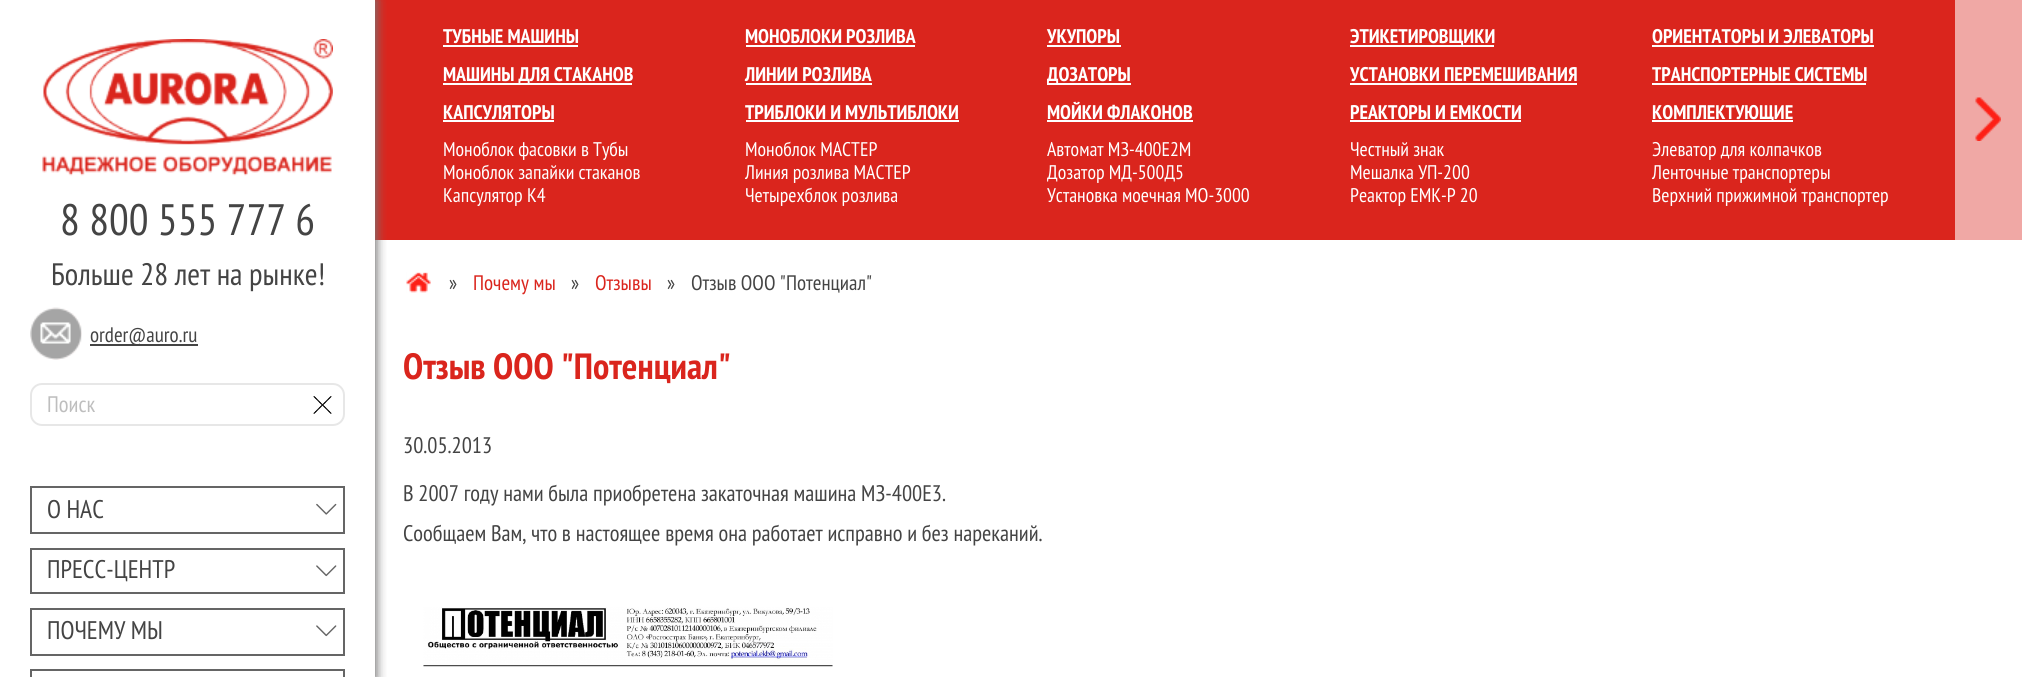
#include <cairo/cairo.h>
#include <math.h>
#include <stddef.h>

typedef struct { double x, y; const char *s; } line_t;
typedef struct { double x, y, w, h; unsigned color; } box_t;
static cairo_t *cr;

static void rgb(unsigned color)
{
	cairo_set_source_rgb(cr, (color >> 16) / 255.0, (color >> 8 & 255) / 255.0, (color & 255) / 255.0);
}

static void rrect(double x, double y, double w, double h, double r)
{
	cairo_new_sub_path(cr);
	cairo_arc(cr, x + w - r, y + h - r, r, 0, M_PI / 2);
	cairo_arc(cr, x + r, y + h - r, r, M_PI / 2, M_PI);
	cairo_arc(cr, x + r, y + r, r, M_PI, 1.5 * M_PI);
	cairo_arc(cr, x + w - r, y + r, r, 1.5 * M_PI, 2 * M_PI);
	cairo_close_path(cr);
}

static void soft_shadow(double x, double y, double w, double h, double r, double blur, double alpha)
{
	cairo_push_group_with_content(cr, CAIRO_CONTENT_ALPHA);
	cairo_set_operator(cr, CAIRO_OPERATOR_SOURCE);
	for (int i = 15; i >= -15 && fmin(w, h) + blur * i / 3 > 0; i -= 2) {
		double e = blur * i / 6;
		cairo_set_source_rgba(cr, 0, 0, 0, alpha * erfc((i - 1) / 8.5) / 2);
		rrect(x - e, y - e, w + 2 * e, h + 2 * e, fmax(0, fmin(r + e + blur * .6, fmin(w, h) / 2 + e)));
		cairo_fill(cr);
	}
	cairo_pattern_t *soft = cairo_pop_group(cr);
	cairo_mask(cr, soft);
	cairo_pattern_destroy(soft);
}

static void image(const char *path, double x, double y, double w, double h)
{
	cairo_surface_t *image = cairo_image_surface_create_from_png(path);
	cairo_save(cr);
	cairo_set_source_surface(cr, image, x, y);
	cairo_rectangle(cr, x, y, w, h);
	cairo_fill(cr);
	cairo_restore(cr);
	cairo_surface_destroy(image);
}

int main(void) {
	cairo_surface_t *surface = cairo_image_surface_create(CAIRO_FORMAT_RGB24, 2022, 677);
	cr = cairo_create(surface);
	cairo_font_options_t *options = cairo_font_options_create();
	cairo_font_options_set_hint_metrics(options, CAIRO_HINT_METRICS_OFF);
	cairo_font_options_set_hint_style(options, CAIRO_HINT_STYLE_NONE);
	cairo_set_font_options(cr, options);
	cairo_set_miter_limit(cr, 4);
	rgb(0xffffff);
	cairo_paint(cr);
	rgb(0xda251d);
	cairo_rectangle(cr, 375, 0, 1580, 240);
	cairo_fill(cr);
	cairo_save(cr);
	cairo_rectangle(cr, 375, 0, 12, 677);
	cairo_clip(cr);
	rgb(0x757474);
	soft_shadow(2, 0, 375, 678, 0, 5, 1);
	cairo_restore(cr);
	image("img/1.png", 42, 39, 291, 137);
	image("img/2.png", 30, 307, 52, 53);
	rgb(0x444444);
	cairo_rectangle(cr, 90, 344, 108, 2);
	cairo_fill(cr);
	rrect(31, 384, 313, 41, 11);
	rgb(0xe7e7e7);
	cairo_stroke(cr);
	image("img/3.png", 313, 396, 19, 18);
	cairo_rectangle(cr, 31, 487, 313, 46);
	rgb(0x656565);
	cairo_stroke(cr);
	image("img/4.png", 316, 503, 21, 12);
	cairo_rectangle(cr, 31, 549, 313, 44);
	cairo_stroke(cr);
	image("img/5.png", 316, 565, 21, 12);
	cairo_rectangle(cr, 31, 609, 313, 46);
	cairo_stroke(cr);
	image("img/5.png", 316, 625, 21, 12);
	cairo_rectangle(cr, 31, 670, 313, 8);
	cairo_stroke(cr);
	{
		static const box_t items[] = {
			{443, 45, 135, 2, 0xffffff},
			{443, 83, 189, 2, 0xffffff},
			{443, 120, 111, 2, 0xffffff},
			{746, 45, 169, 2, 0xffffff},
			{746, 83, 126, 2, 0xffffff},
			{746, 120, 213, 2, 0xffffff},
			{1047, 45, 74, 2, 0xffffff},
			{1047, 83, 84, 2, 0xffffff},
			{1047, 120, 146, 2, 0xffffff},
			{1350, 45, 144, 2, 0xffffff},
			{1350, 83, 227, 2, 0xffffff},
			{1350, 120, 171, 2, 0xffffff},
			{1652, 45, 222, 2, 0xffffff},
			{1652, 83, 214, 2, 0xffffff},
			{1652, 120, 141, 2, 0xffffff},
			{1955, 0, 67, 240, 0xf0a8a5},
		};
		for (size_t i = 0; i < sizeof items / sizeof *items; i++) {
			rgb(items[i].color);
			cairo_rectangle(cr, items[i].x, items[i].y, items[i].w, items[i].h);
			cairo_fill(cr);
		}
	}
	image("img/6.png", 1975, 97, 26, 44);
	image("img/7.png", 406, 272, 25, 21);
	image("img/8.png", 423, 607, 410, 60);
	cairo_select_font_face(cr, "PT Sans Narrow", CAIRO_FONT_SLANT_NORMAL, CAIRO_FONT_WEIGHT_NORMAL);
	cairo_set_font_size(cr, 44);
	rgb(0x444444);
	cairo_move_to(cr, 60, 235);
	cairo_show_text(cr, "8 800 555 777 6");
	cairo_set_font_size(cr, 31);
	cairo_move_to(cr, 51, 285);
	cairo_show_text(cr, "Больше 28 лет на рынке!");
	cairo_set_font_size(cr, 21);
	cairo_move_to(cr, 90, 342);
	cairo_show_text(cr, "order@auro.ru");
	cairo_set_font_size(cr, 22.5);
	rgb(0xbebebe);
	cairo_move_to(cr, 47, 412);
	cairo_show_text(cr, "Поиск");
	cairo_set_font_size(cr, 25.5);
	rgb(0x444444);
	{
		static const line_t items[] = {
			{47, 518, "О НАС"},
			{47, 578, "ПРЕCC-ЦЕНТР"},
			{47, 639, "ПОЧЕМУ МЫ"},
		};
		for (size_t i = 0; i < sizeof items / sizeof *items; i++) {
			cairo_move_to(cr, items[i].x, items[i].y);
			cairo_show_text(cr, items[i].s);
		}
	}
	cairo_save(cr);
	cairo_rectangle(cr, 443, 0, 1512, 240);
	cairo_clip(cr);
	cairo_select_font_face(cr, "PT Sans Narrow", CAIRO_FONT_SLANT_NORMAL, CAIRO_FONT_WEIGHT_BOLD);
	cairo_set_font_size(cr, 19.75);
	rgb(0xffffff);
	cairo_move_to(cr, 443, 43);
	cairo_show_text(cr, "ТУБНЫЕ МАШИНЫ");
	cairo_restore(cr);
	cairo_select_font_face(cr, "PT Sans Narrow", CAIRO_FONT_SLANT_NORMAL, CAIRO_FONT_WEIGHT_BOLD);
	cairo_set_font_size(cr, 19.75);
	rgb(0xffffff);
	cairo_move_to(cr, 443, 81);
	cairo_show_text(cr, "МАШИНЫ ДЛЯ СТАКАНОВ");
	cairo_move_to(cr, 443, 119);
	cairo_show_text(cr, "КАПСУЛЯТОРЫ");
	cairo_select_font_face(cr, "PT Sans Narrow", CAIRO_FONT_SLANT_NORMAL, CAIRO_FONT_WEIGHT_NORMAL);
	{
		static const line_t items[] = {
			{443, 156, "Моноблок фасовки в Тубы"},
			{443, 179, "Моноблок запайки стаканов"},
			{443, 202, "Капсулятор К4"},
		};
		for (size_t i = 0; i < sizeof items / sizeof *items; i++) {
			cairo_move_to(cr, items[i].x, items[i].y);
			cairo_show_text(cr, items[i].s);
		}
	}
	cairo_select_font_face(cr, "PT Sans Narrow", CAIRO_FONT_SLANT_NORMAL, CAIRO_FONT_WEIGHT_BOLD);
	{
		static const line_t items[] = {
			{745, 43, "МОНОБЛОКИ РОЗЛИВА"},
			{745, 81, "ЛИНИИ РОЗЛИВА"},
			{745, 119, "ТРИБЛОКИ И МУЛЬТИБЛОКИ"},
		};
		for (size_t i = 0; i < sizeof items / sizeof *items; i++) {
			cairo_move_to(cr, items[i].x, items[i].y);
			cairo_show_text(cr, items[i].s);
		}
	}
	cairo_select_font_face(cr, "PT Sans Narrow", CAIRO_FONT_SLANT_NORMAL, CAIRO_FONT_WEIGHT_NORMAL);
	{
		static const line_t items[] = {
			{745, 156, "Моноблок МАСТЕР"},
			{745, 179, "Линия розлива МАСТЕР"},
			{745, 202, "Четырехблок розлива"},
		};
		for (size_t i = 0; i < sizeof items / sizeof *items; i++) {
			cairo_move_to(cr, items[i].x, items[i].y);
			cairo_show_text(cr, items[i].s);
		}
	}
	cairo_select_font_face(cr, "PT Sans Narrow", CAIRO_FONT_SLANT_NORMAL, CAIRO_FONT_WEIGHT_BOLD);
	{
		static const line_t items[] = {
			{1047, 43, "УКУПОРЫ"},
			{1047, 81, "ДОЗАТОРЫ"},
			{1047, 119, "МОЙКИ ФЛАКОНОВ"},
		};
		for (size_t i = 0; i < sizeof items / sizeof *items; i++) {
			cairo_move_to(cr, items[i].x, items[i].y);
			cairo_show_text(cr, items[i].s);
		}
	}
	cairo_select_font_face(cr, "PT Sans Narrow", CAIRO_FONT_SLANT_NORMAL, CAIRO_FONT_WEIGHT_NORMAL);
	{
		static const line_t items[] = {
			{1047, 156, "Автомат МЗ-400Е2М"},
			{1047, 179, "Дозатор МД-500Д5"},
			{1047, 202, "Установка моечная МО-3000"},
		};
		for (size_t i = 0; i < sizeof items / sizeof *items; i++) {
			cairo_move_to(cr, items[i].x, items[i].y);
			cairo_show_text(cr, items[i].s);
		}
	}
	cairo_select_font_face(cr, "PT Sans Narrow", CAIRO_FONT_SLANT_NORMAL, CAIRO_FONT_WEIGHT_BOLD);
	{
		static const line_t items[] = {
			{1350, 43, "ЭТИКЕТИРОВЩИКИ"},
			{1350, 81, "УСТАНОВКИ ПЕРЕМЕШИВАНИЯ"},
			{1350, 119, "РЕАКТОРЫ И ЕМКОСТИ"},
		};
		for (size_t i = 0; i < sizeof items / sizeof *items; i++) {
			cairo_move_to(cr, items[i].x, items[i].y);
			cairo_show_text(cr, items[i].s);
		}
	}
	cairo_select_font_face(cr, "PT Sans Narrow", CAIRO_FONT_SLANT_NORMAL, CAIRO_FONT_WEIGHT_NORMAL);
	{
		static const line_t items[] = {
			{1350, 156, "Честный знак"},
			{1350, 179, "Мешалка УП-200"},
			{1350, 202, "Реактор ЕМК-Р 20"},
		};
		for (size_t i = 0; i < sizeof items / sizeof *items; i++) {
			cairo_move_to(cr, items[i].x, items[i].y);
			cairo_show_text(cr, items[i].s);
		}
	}
	cairo_select_font_face(cr, "PT Sans Narrow", CAIRO_FONT_SLANT_NORMAL, CAIRO_FONT_WEIGHT_BOLD);
	{
		static const line_t items[] = {
			{1652, 43, "ОРИЕНТАТОРЫ И ЭЛЕВАТОРЫ"},
			{1652, 81, "ТРАНСПОРТЕРНЫЕ СИСТЕМЫ"},
			{1652, 119, "КОМПЛЕКТУЮЩИЕ"},
		};
		for (size_t i = 0; i < sizeof items / sizeof *items; i++) {
			cairo_move_to(cr, items[i].x, items[i].y);
			cairo_show_text(cr, items[i].s);
		}
	}
	cairo_select_font_face(cr, "PT Sans Narrow", CAIRO_FONT_SLANT_NORMAL, CAIRO_FONT_WEIGHT_NORMAL);
	{
		static const line_t items[] = {
			{1652, 156, "Элеватор для колпачков"},
			{1652, 179, "Ленточные транспортеры"},
			{1652, 202, "Верхний прижимной транспортер"},
		};
		for (size_t i = 0; i < sizeof items / sizeof *items; i++) {
			cairo_move_to(cr, items[i].x, items[i].y);
			cairo_show_text(cr, items[i].s);
		}
	}
	cairo_set_font_size(cr, 21);
	rgb(0x444444);
	cairo_move_to(cr, 449, 290);
	cairo_show_text(cr, "»");
	rgb(0xda251d);
	cairo_move_to(cr, 473, 290);
	cairo_show_text(cr, "Почему мы");
	rgb(0x444444);
	cairo_move_to(cr, 571, 290);
	cairo_show_text(cr, "»");
	rgb(0xda251d);
	cairo_move_to(cr, 595, 290);
	cairo_show_text(cr, "Отзывы");
	rgb(0x444444);
	cairo_move_to(cr, 667, 290);
	cairo_show_text(cr, "»");
	cairo_move_to(cr, 691, 290);
	cairo_show_text(cr, "Отзыв ООО \"Потенциал\"");
	cairo_select_font_face(cr, "PT Sans Narrow", CAIRO_FONT_SLANT_NORMAL, CAIRO_FONT_WEIGHT_BOLD);
	cairo_set_font_size(cr, 36.5);
	rgb(0xda251d);
	cairo_move_to(cr, 403, 379);
	cairo_show_text(cr, "Отзыв ООО \"Потенциал\"");
	cairo_select_font_face(cr, "PT Sans Narrow", CAIRO_FONT_SLANT_NORMAL, CAIRO_FONT_WEIGHT_NORMAL);
	cairo_set_font_size(cr, 22.5);
	rgb(0x444444);
	{
		static const line_t items[] = {
			{403, 453, "30.05.2013"},
			{403, 501, "В 2007 году нами была приобретена закаточная машина МЗ-400Е3."},
			{403, 541, "Сообщаем Вам, что в настоящее время она работает исправно и без нареканий."},
		};
		for (size_t i = 0; i < sizeof items / sizeof *items; i++) {
			cairo_move_to(cr, items[i].x, items[i].y);
			cairo_show_text(cr, items[i].s);
		}
	}
	cairo_surface_write_to_png(surface, "page.png");
	cairo_font_options_destroy(options);
	cairo_destroy(cr);
	cairo_surface_destroy(surface);
	return 0;
}
